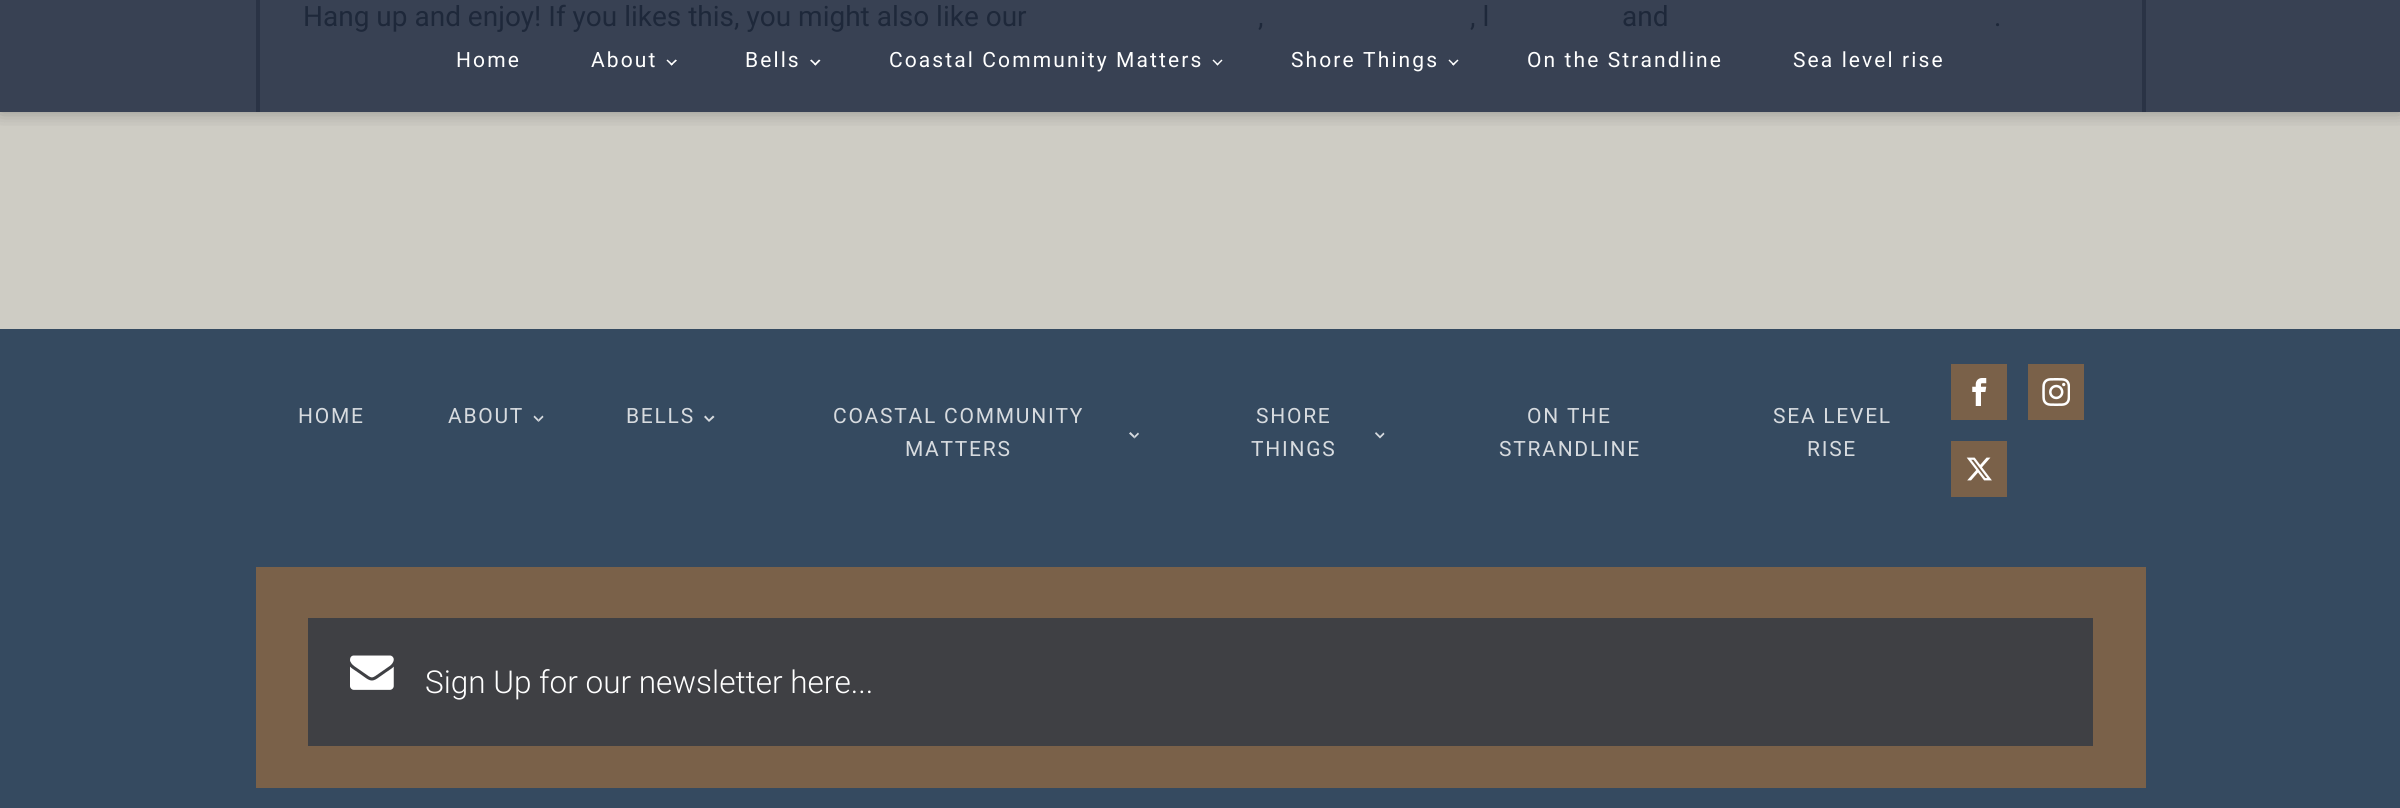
#include <cairo/cairo.h>
#include <math.h>
#include <stddef.h>

typedef struct { double x, y; const char *s; } line_t;
typedef struct { double x, y, w, h; unsigned color; } box_t;
static cairo_t *cr;

static void rgb(unsigned color)
{
	cairo_set_source_rgb(cr, (color >> 16) / 255.0, (color >> 8 & 255) / 255.0, (color & 255) / 255.0);
}

static void tracked(double x, double y, const char *s, double letter, double word)
{
	cairo_move_to(cr, x, y);
	while (*s) {
		char ch[5] = {0};
		int n = 0;
		do ch[n++] = *s++; while ((*s & 0xC0) == 0x80);
		cairo_show_text(cr, ch);
		cairo_rel_move_to(cr, letter + word * (*ch == ' '), 0);
	}
}

static void rrect(double x, double y, double w, double h, double r)
{
	cairo_new_sub_path(cr);
	cairo_arc(cr, x + w - r, y + h - r, r, 0, M_PI / 2);
	cairo_arc(cr, x + r, y + h - r, r, M_PI / 2, M_PI);
	cairo_arc(cr, x + r, y + r, r, M_PI, 1.5 * M_PI);
	cairo_arc(cr, x + w - r, y + r, r, 1.5 * M_PI, 2 * M_PI);
	cairo_close_path(cr);
}

static void soft_shadow(double x, double y, double w, double h, double r, double blur, double alpha)
{
	cairo_push_group_with_content(cr, CAIRO_CONTENT_ALPHA);
	cairo_set_operator(cr, CAIRO_OPERATOR_SOURCE);
	for (int i = 15; i >= -15 && fmin(w, h) + blur * i / 3 > 0; i -= 2) {
		double e = blur * i / 6;
		cairo_set_source_rgba(cr, 0, 0, 0, alpha * erfc((i - 1) / 8.5) / 2);
		rrect(x - e, y - e, w + 2 * e, h + 2 * e, fmax(0, fmin(r + e + blur * .6, fmin(w, h) / 2 + e)));
		cairo_fill(cr);
	}
	cairo_pattern_t *soft = cairo_pop_group(cr);
	cairo_mask(cr, soft);
	cairo_pattern_destroy(soft);
}

static void image(const char *path, double x, double y, double w, double h)
{
	cairo_surface_t *image = cairo_image_surface_create_from_png(path);
	cairo_save(cr);
	cairo_set_source_surface(cr, image, x, y);
	cairo_rectangle(cr, x, y, w, h);
	cairo_fill(cr);
	cairo_restore(cr);
	cairo_surface_destroy(image);
}

int main(void) {
	cairo_surface_t *surface = cairo_image_surface_create(CAIRO_FORMAT_RGB24, 2400, 808);
	cr = cairo_create(surface);
	cairo_font_options_t *options = cairo_font_options_create();
	cairo_font_options_set_hint_metrics(options, CAIRO_HINT_METRICS_OFF);
	cairo_font_options_set_hint_style(options, CAIRO_HINT_STYLE_NONE);
	cairo_set_font_options(cr, options);
	cairo_set_miter_limit(cr, 4);
	rgb(0xceccc4);
	cairo_paint(cr);
	{
		static const box_t items[] = {
			{0, 0, 2400, 112, 0x384153},
			{2142, 0, 4, 112, 0x2a3345},
			{256, 0, 4, 112, 0x2a3345},
		};
		for (size_t i = 0; i < sizeof items / sizeof *items; i++) {
			rgb(items[i].color);
			cairo_rectangle(cr, items[i].x, items[i].y, items[i].w, items[i].h);
			cairo_fill(cr);
		}
	}
	cairo_save(cr);
	cairo_rectangle(cr, 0, 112, 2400, 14);
	cairo_clip(cr);
	rgb(0x000000);
	soft_shadow(0, 0, 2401, 112, 0, 9, 0.3);
	cairo_restore(cr);
	rgb(0xffffff);
	cairo_new_path(cr);
	cairo_move_to(cr, 677, 60.5);
	cairo_line_to(cr, 671.5, 65.5);
	cairo_line_to(cr, 670.5, 64.5);
	cairo_line_to(cr, 675.5, 59.5);
	cairo_close_path(cr);
	cairo_fill(cr);
	cairo_new_path(cr);
	cairo_move_to(cr, 673, 64.5);
	cairo_line_to(cr, 671.5, 65.5);
	cairo_line_to(cr, 666.5, 60.5);
	cairo_line_to(cr, 667.5, 59.5);
	cairo_close_path(cr);
	cairo_fill(cr);
	cairo_new_path(cr);
	cairo_move_to(cr, 820.5, 60.5);
	cairo_line_to(cr, 815.5, 65.5);
	cairo_line_to(cr, 814, 64.5);
	cairo_line_to(cr, 819, 59.5);
	cairo_close_path(cr);
	cairo_fill(cr);
	cairo_new_path(cr);
	cairo_move_to(cr, 816.5, 64.5);
	cairo_line_to(cr, 815.5, 65.5);
	cairo_line_to(cr, 810, 60.5);
	cairo_line_to(cr, 811.5, 59.5);
	cairo_close_path(cr);
	cairo_fill(cr);
	cairo_new_path(cr);
	cairo_move_to(cr, 1222.5, 60.5);
	cairo_line_to(cr, 1217.5, 65.5);
	cairo_line_to(cr, 1216.5, 64.5);
	cairo_line_to(cr, 1221.5, 59.5);
	cairo_close_path(cr);
	cairo_fill(cr);
	cairo_new_path(cr);
	cairo_move_to(cr, 1218.5, 64.5);
	cairo_line_to(cr, 1217.5, 65.5);
	cairo_line_to(cr, 1212.5, 60.5);
	cairo_line_to(cr, 1213.5, 59.5);
	cairo_close_path(cr);
	cairo_fill(cr);
	cairo_new_path(cr);
	cairo_move_to(cr, 1458.5, 60.5);
	cairo_line_to(cr, 1453.5, 65.5);
	cairo_line_to(cr, 1452, 64.5);
	cairo_line_to(cr, 1457.5, 59.5);
	cairo_close_path(cr);
	cairo_fill(cr);
	cairo_new_path(cr);
	cairo_move_to(cr, 1454.5, 64.5);
	cairo_line_to(cr, 1453.5, 65.5);
	cairo_line_to(cr, 1448.5, 60.5);
	cairo_line_to(cr, 1449.5, 59.5);
	cairo_close_path(cr);
	cairo_fill(cr);
	rgb(0x354a60);
	cairo_rectangle(cr, 0, 329, 2400, 479);
	cairo_fill(cr);
	rgb(0xd7dbdf);
	cairo_new_path(cr);
	cairo_move_to(cr, 543.5, 417);
	cairo_line_to(cr, 538.5, 422);
	cairo_line_to(cr, 538.5, 419.5);
	cairo_line_to(cr, 542.5, 415.5);
	cairo_close_path(cr);
	cairo_fill(cr);
	cairo_set_source_rgba(cr, 1, 1, 1, 0.8);
	cairo_new_path(cr);
	cairo_move_to(cr, 538.5, 422);
	cairo_line_to(cr, 533.5, 417);
	cairo_line_to(cr, 534.5, 415.5);
	cairo_line_to(cr, 538.5, 419.5);
	cairo_close_path(cr);
	cairo_fill(cr);
	rgb(0xd7dbdf);
	cairo_new_path(cr);
	cairo_move_to(cr, 714.5, 417);
	cairo_line_to(cr, 709, 422);
	cairo_line_to(cr, 709, 419.5);
	cairo_line_to(cr, 713, 415.5);
	cairo_close_path(cr);
	cairo_move_to(cr, 709, 422);
	cairo_line_to(cr, 704, 417);
	cairo_line_to(cr, 705.5, 415.5);
	cairo_line_to(cr, 709, 419.5);
	cairo_close_path(cr);
	cairo_fill(cr);
	cairo_new_path(cr);
	cairo_move_to(cr, 1139, 434);
	cairo_line_to(cr, 1134.5, 438.5);
	cairo_line_to(cr, 1134.5, 436);
	cairo_line_to(cr, 1138, 432.5);
	cairo_close_path(cr);
	cairo_fill(cr);
	cairo_set_source_rgba(cr, 1, 1, 1, 0.8);
	cairo_new_path(cr);
	cairo_move_to(cr, 1134.5, 438.5);
	cairo_line_to(cr, 1129, 433.5);
	cairo_line_to(cr, 1130.5, 432);
	cairo_line_to(cr, 1134.5, 436);
	cairo_close_path(cr);
	cairo_fill(cr);
	rgb(0xd7dbdf);
	cairo_new_path(cr);
	cairo_move_to(cr, 1384.5, 434);
	cairo_line_to(cr, 1380, 438.5);
	cairo_line_to(cr, 1380, 436);
	cairo_line_to(cr, 1383.5, 432.5);
	cairo_close_path(cr);
	cairo_move_to(cr, 1380, 438.5);
	cairo_line_to(cr, 1375, 433.5);
	cairo_line_to(cr, 1376, 432);
	cairo_line_to(cr, 1380, 436);
	cairo_close_path(cr);
	cairo_fill(cr);
	rgb(0x7a6149);
	cairo_rectangle(cr, 1951, 364, 56, 56);
	cairo_fill(cr);
	image("img/1.png", 1972, 378, 15, 28);
	cairo_rectangle(cr, 2028, 364, 56, 56);
	cairo_fill(cr);
	image("img/2.png", 2042, 378, 28, 28);
	cairo_rectangle(cr, 1951, 441, 56, 56);
	cairo_fill(cr);
	image("img/3.png", 1966, 457, 26, 24);
	cairo_rectangle(cr, 256, 567, 1890, 221);
	cairo_fill(cr);
	rgb(0x3f4044);
	cairo_rectangle(cr, 308, 618, 1785, 128);
	cairo_fill(cr);
	image("img/4.png", 350, 655, 44, 35);
	cairo_select_font_face(cr, "Roboto", CAIRO_FONT_SLANT_NORMAL, CAIRO_FONT_WEIGHT_NORMAL);
	cairo_set_font_size(cr, 28);
	rgb(0x1e283a);
	{
		static const line_t items[] = {
			{303, 26, "Hang up and enjoy! If you likes this, you might also like our"},
			{1258, 26, ","},
			{1470, 26, ", l"},
			{1622, 26, "and"},
			{1994, 26, "."},
		};
		for (size_t i = 0; i < sizeof items / sizeof *items; i++) {
			cairo_move_to(cr, items[i].x, items[i].y);
			cairo_show_text(cr, items[i].s);
		}
	}
	cairo_set_font_size(cr, 21);
	rgb(0xffffff);
	{
		static const line_t items[] = {
			{456, 67, "Home"},
			{591, 67, "About"},
			{745, 67, "Bells"},
			{889, 67, "Coastal Community Matters"},
			{1291, 67, "Shore Things"},
			{1527, 67, "On the Strandline"},
			{1793, 67, "Sea level rise"},
		};
		for (size_t i = 0; i < sizeof items / sizeof *items; i++) {
			tracked(items[i].x, items[i].y, items[i].s, 2.1, 0);
		}
	}
	rgb(0xd7dbdf);
	{
		static const line_t items[] = {
			{298, 423, "HOME"},
			{448, 423, "ABOUT"},
			{626, 423, "BELLS"},
			{833, 423, "COASTAL COMMUNITY"},
			{905, 456, "MATTERS"},
			{1256, 423, "SHORE"},
			{1251, 456, "THINGS"},
			{1527, 423, "ON THE"},
			{1499, 456, "STRANDLINE"},
			{1773, 423, "SEA LEVEL"},
			{1807, 456, "RISE"},
		};
		for (size_t i = 0; i < sizeof items / sizeof *items; i++) {
			tracked(items[i].x, items[i].y, items[i].s, 1.75, 0);
		}
	}
	cairo_select_font_face(cr, "Roboto Light", CAIRO_FONT_SLANT_NORMAL, CAIRO_FONT_WEIGHT_NORMAL);
	cairo_set_font_size(cr, 31.5);
	rgb(0xffffff);
	cairo_move_to(cr, 425, 693);
	cairo_show_text(cr, "Sign Up for our newsletter here...");
	cairo_surface_write_to_png(surface, "page.png");
	cairo_font_options_destroy(options);
	cairo_destroy(cr);
	cairo_surface_destroy(surface);
	return 0;
}
